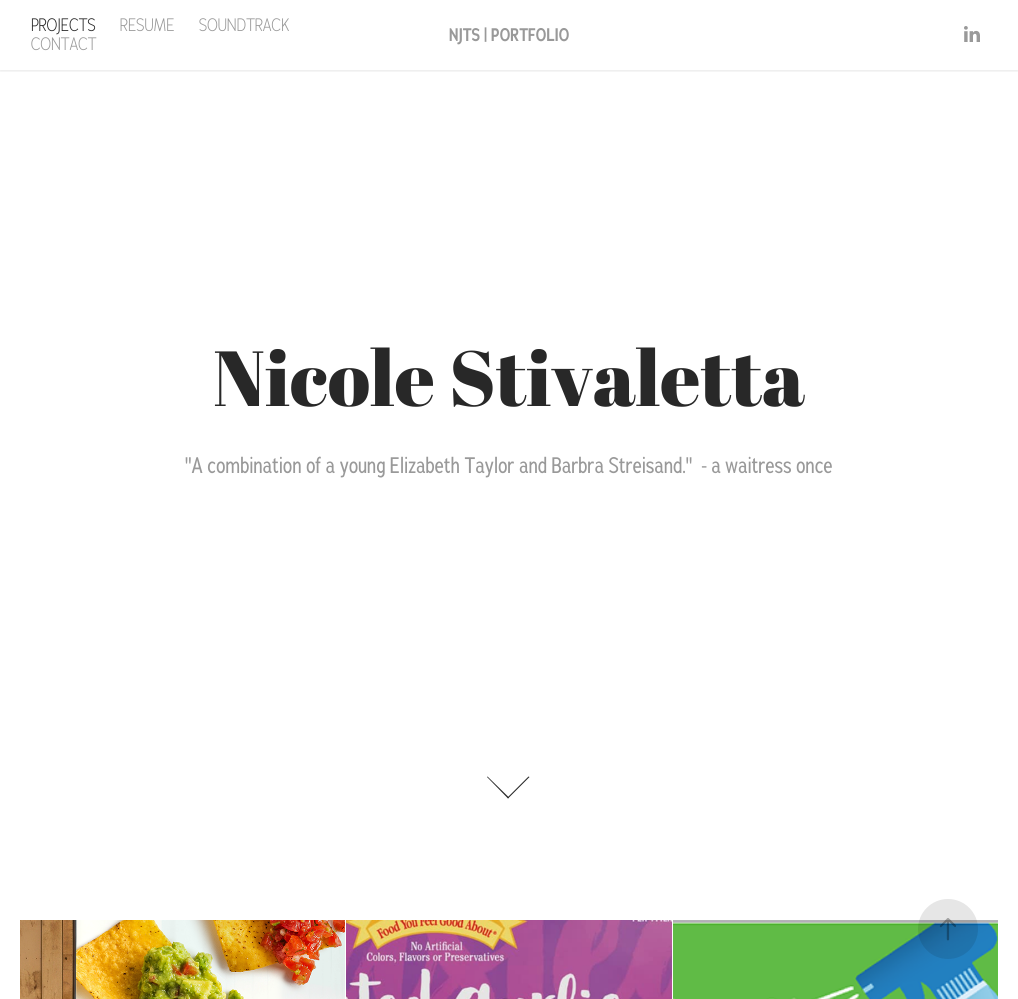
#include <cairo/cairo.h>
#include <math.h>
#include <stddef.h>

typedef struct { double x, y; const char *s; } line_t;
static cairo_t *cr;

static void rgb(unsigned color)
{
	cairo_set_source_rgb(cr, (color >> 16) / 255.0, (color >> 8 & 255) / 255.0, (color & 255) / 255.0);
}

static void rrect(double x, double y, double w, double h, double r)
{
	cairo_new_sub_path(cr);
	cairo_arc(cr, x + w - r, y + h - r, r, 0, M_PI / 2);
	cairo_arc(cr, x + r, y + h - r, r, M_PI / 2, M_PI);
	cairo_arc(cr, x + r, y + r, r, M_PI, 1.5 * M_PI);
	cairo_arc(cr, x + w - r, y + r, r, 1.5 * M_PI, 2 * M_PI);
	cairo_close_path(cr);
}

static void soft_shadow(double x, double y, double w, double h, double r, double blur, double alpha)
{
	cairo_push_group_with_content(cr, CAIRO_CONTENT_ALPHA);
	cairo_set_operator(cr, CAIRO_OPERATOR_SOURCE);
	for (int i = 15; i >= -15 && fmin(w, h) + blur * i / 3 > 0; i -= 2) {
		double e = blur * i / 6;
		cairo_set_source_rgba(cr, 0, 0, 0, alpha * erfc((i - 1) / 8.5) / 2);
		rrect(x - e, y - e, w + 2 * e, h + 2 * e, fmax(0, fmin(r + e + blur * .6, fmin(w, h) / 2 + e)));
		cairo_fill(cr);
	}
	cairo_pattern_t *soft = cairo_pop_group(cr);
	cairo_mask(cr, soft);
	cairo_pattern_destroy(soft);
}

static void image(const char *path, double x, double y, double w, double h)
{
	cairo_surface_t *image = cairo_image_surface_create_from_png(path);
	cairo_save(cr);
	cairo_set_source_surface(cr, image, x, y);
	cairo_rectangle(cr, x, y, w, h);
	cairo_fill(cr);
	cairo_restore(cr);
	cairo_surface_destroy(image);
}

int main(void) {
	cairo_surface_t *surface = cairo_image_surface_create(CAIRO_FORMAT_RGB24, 1018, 999);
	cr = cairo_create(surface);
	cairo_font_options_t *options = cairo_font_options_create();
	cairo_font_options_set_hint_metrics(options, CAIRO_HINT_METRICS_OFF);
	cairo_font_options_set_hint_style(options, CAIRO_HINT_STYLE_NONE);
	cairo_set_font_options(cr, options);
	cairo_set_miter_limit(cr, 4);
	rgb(0xffffff);
	cairo_paint(cr);
	cairo_save(cr);
	cairo_rectangle(cr, 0, 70, 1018, 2);
	cairo_clip(cr);
	rgb(0x000000);
	soft_shadow(0, 1, 1018, 70, 0, 1.5, 0.1);
	cairo_restore(cr);
	image("img/1.png", 964, 26, 16, 16);
	rgb(0x282828);
	cairo_new_path(cr);
	cairo_move_to(cr, 528.5, 776.5);
	cairo_line_to(cr, 529.5, 777);
	cairo_line_to(cr, 508, 798.5);
	cairo_line_to(cr, 507.5, 797.5);
	cairo_close_path(cr);
	cairo_fill(cr);
	cairo_new_path(cr);
	cairo_move_to(cr, 487.5, 776.5);
	cairo_line_to(cr, 509, 797.5);
	cairo_line_to(cr, 508, 798.5);
	cairo_line_to(cr, 487, 777);
	cairo_close_path(cr);
	cairo_fill(cr);
	image("img/5.png", 673, 920, 325, 79);
	cairo_set_source_rgba(cr, 0, 0, 0, 0.1);
	cairo_arc(cr, 948, 929, 30, 0, 2 * M_PI);
	cairo_fill(cr);
	image("img/2.png", 939, 918, 17, 23);
	image("img/3.png", 20, 920, 325, 79);
	image("img/4.png", 346, 920, 326, 79);
	cairo_select_font_face(cr, "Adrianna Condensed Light", CAIRO_FONT_SLANT_NORMAL, CAIRO_FONT_WEIGHT_NORMAL);
	cairo_set_font_size(cr, 18);
	rgb(0x282828);
	cairo_move_to(cr, 31, 31);
	cairo_show_text(cr, "PROJECTS");
	rgb(0x999999);
	{
		static const line_t items[] = {
			{120, 31, "RESUME"},
			{199, 31, "SOUNDTRACK"},
			{31, 50, "CONTACT"},
		};
		for (size_t i = 0; i < sizeof items / sizeof *items; i++) {
			cairo_move_to(cr, items[i].x, items[i].y);
			cairo_show_text(cr, items[i].s);
		}
	}
	cairo_select_font_face(cr, "Adrianna Condensed SemiBold", CAIRO_FONT_SLANT_NORMAL, CAIRO_FONT_WEIGHT_NORMAL);
	cairo_move_to(cr, 449, 41);
	cairo_show_text(cr, "NJTS | PORTFOLIO");
	cairo_select_font_face(cr, "Abril Fatface", CAIRO_FONT_SLANT_NORMAL, CAIRO_FONT_WEIGHT_NORMAL);
	cairo_set_font_size(cr, 78);
	rgb(0x282828);
	cairo_move_to(cr, 213, 406);
	cairo_show_text(cr, "Nicole Stivaletta");
	cairo_select_font_face(cr, "Adrianna Condensed", CAIRO_FONT_SLANT_NORMAL, CAIRO_FONT_WEIGHT_NORMAL);
	cairo_set_font_size(cr, 22);
	rgb(0x999999);
	cairo_move_to(cr, 185, 473);
	cairo_show_text(cr, "\"A combination of a young Elizabeth Taylor and Barbra Streisand.\"  - a waitress once");
	cairo_surface_write_to_png(surface, "page.png");
	cairo_font_options_destroy(options);
	cairo_destroy(cr);
	cairo_surface_destroy(surface);
	return 0;
}
